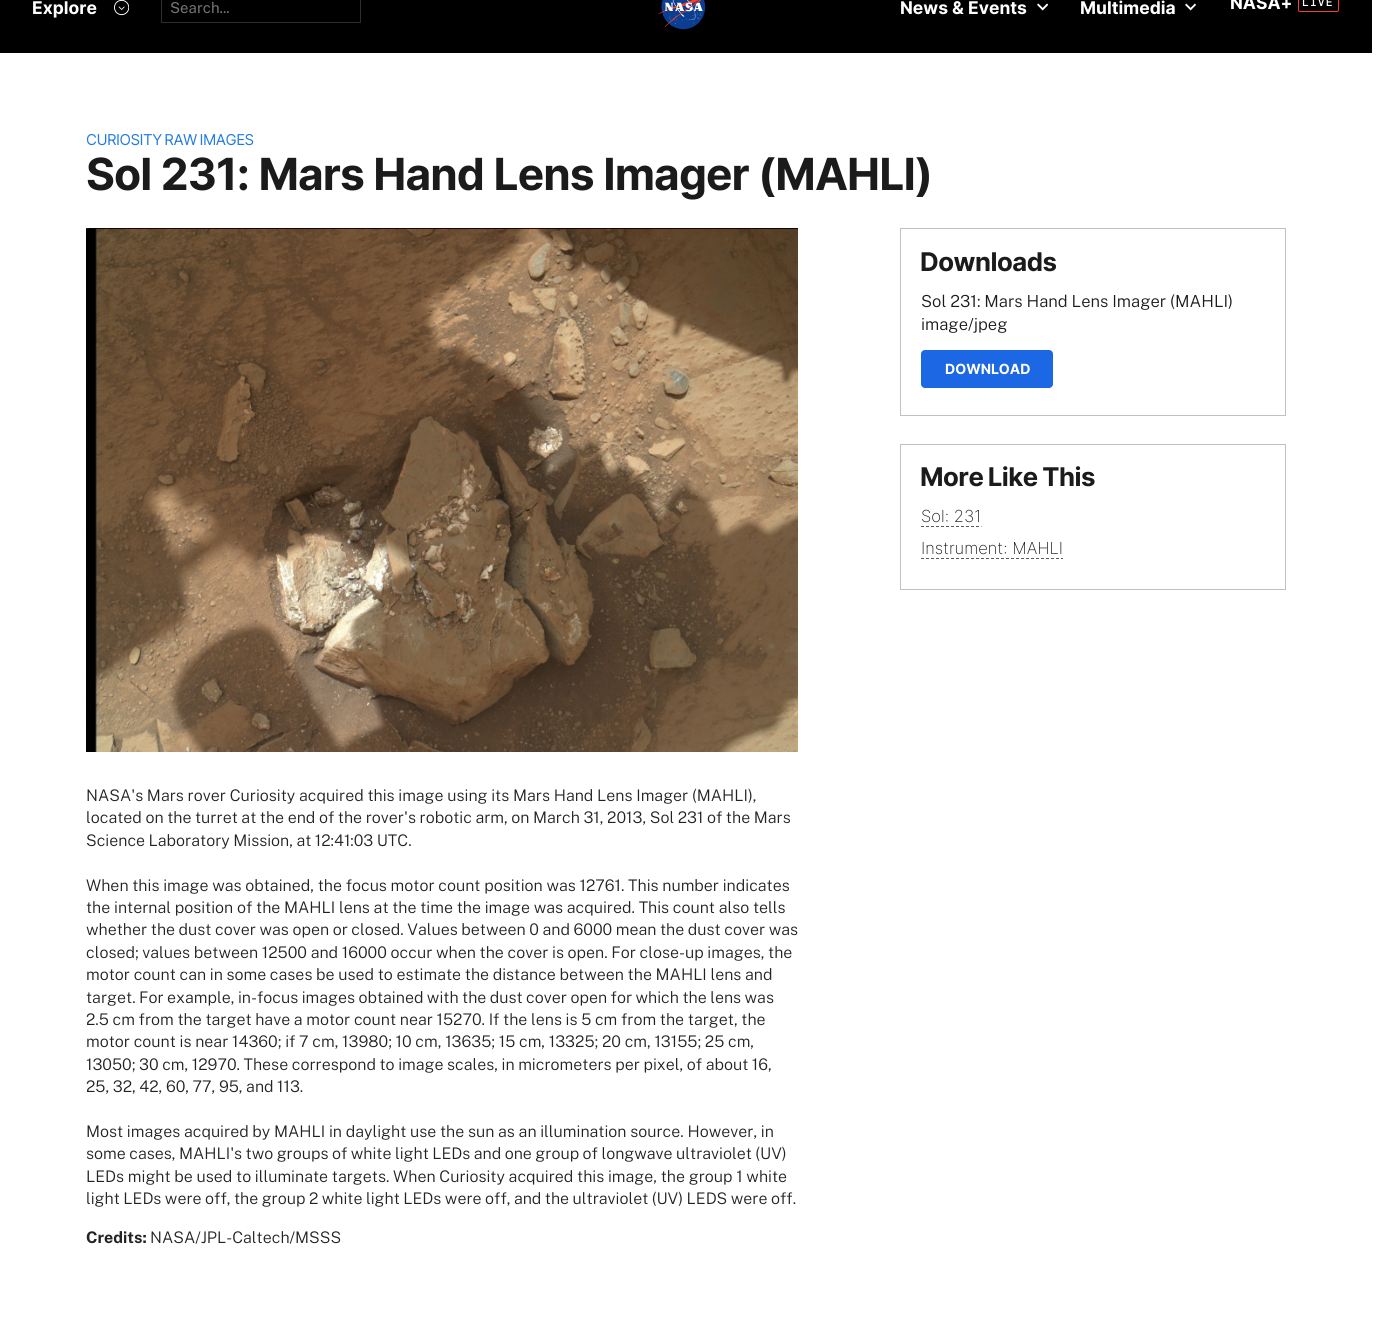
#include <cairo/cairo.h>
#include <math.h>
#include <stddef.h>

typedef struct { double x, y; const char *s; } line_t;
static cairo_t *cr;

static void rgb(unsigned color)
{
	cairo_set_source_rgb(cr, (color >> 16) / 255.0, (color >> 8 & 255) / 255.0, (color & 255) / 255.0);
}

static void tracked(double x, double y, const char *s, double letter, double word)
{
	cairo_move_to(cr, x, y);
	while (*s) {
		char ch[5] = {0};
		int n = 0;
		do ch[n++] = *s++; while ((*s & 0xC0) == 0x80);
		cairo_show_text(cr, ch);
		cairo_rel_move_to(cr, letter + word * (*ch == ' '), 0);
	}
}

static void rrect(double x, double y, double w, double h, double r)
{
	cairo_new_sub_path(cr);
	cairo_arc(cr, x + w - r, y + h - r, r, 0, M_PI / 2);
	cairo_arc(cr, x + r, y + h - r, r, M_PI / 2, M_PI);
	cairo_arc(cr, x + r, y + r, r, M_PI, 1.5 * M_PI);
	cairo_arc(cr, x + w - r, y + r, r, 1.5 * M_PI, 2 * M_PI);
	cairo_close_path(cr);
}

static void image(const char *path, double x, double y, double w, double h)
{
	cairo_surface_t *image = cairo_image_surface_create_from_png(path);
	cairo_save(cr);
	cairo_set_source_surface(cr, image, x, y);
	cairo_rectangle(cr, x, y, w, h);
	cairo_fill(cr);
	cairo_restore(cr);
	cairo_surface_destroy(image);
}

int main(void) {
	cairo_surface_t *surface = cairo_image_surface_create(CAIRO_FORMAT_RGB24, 1387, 1344);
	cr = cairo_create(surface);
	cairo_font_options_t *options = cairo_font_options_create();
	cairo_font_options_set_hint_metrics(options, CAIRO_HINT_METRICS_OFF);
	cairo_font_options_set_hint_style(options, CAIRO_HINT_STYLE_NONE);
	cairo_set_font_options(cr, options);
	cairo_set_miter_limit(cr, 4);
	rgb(0xffffff);
	cairo_paint(cr);
	rgb(0x000000);
	cairo_rectangle(cr, 0, 0, 1372, 53);
	cairo_fill(cr);
	image("img/1.png", 114, 0, 15, 16);
	cairo_rectangle(cr, 161.5, -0.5, 199, 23);
	rgb(0x2e2e32);
	cairo_set_line_width(cr, 1);
	cairo_stroke(cr);
	image("img/2.png", 658, 0, 48, 30);
	image("img/3.png", 1037, 3, 11, 8);
	image("img/4.png", 1185, 3, 11, 8);
	rrect(1298.5, -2.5, 40, 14, 1.5);
	rgb(0xf64137);
	cairo_stroke(cr);
	cairo_rectangle(cr, 900.5, 228.5, 385, 187);
	rgb(0xc1c1c1);
	cairo_stroke(cr);
	rgb(0x1c67e3);
	rrect(921, 350, 132, 38, 4);
	cairo_fill(cr);
	cairo_rectangle(cr, 900.5, 444.5, 385, 145);
	rgb(0xc1c1c1);
	cairo_stroke(cr);
	cairo_new_path(cr);
	cairo_move_to(cr, 921, 526.5);
	cairo_line_to(cr, 981.5, 526.5);
	rgb(0x58585b);
	cairo_set_dash(cr, (double[]){3, 2}, 2, 0);
	cairo_stroke(cr);
	cairo_new_path(cr);
	cairo_move_to(cr, 921, 558.5);
	cairo_line_to(cr, 1063, 558.5);
	cairo_stroke(cr);
	image("img/5.png", 86, 228, 712, 524);
	cairo_select_font_face(cr, "Inter", CAIRO_FONT_SLANT_NORMAL, CAIRO_FONT_WEIGHT_BOLD);
	cairo_set_font_size(cr, 17.5);
	rgb(0xffffff);
	cairo_move_to(cr, 32, 14);
	cairo_show_text(cr, "Explore");
	cairo_select_font_face(cr, "Public Sans", CAIRO_FONT_SLANT_NORMAL, CAIRO_FONT_WEIGHT_NORMAL);
	cairo_set_font_size(cr, 15);
	rgb(0x757575);
	cairo_move_to(cr, 170, 13);
	cairo_show_text(cr, "Search...");
	cairo_select_font_face(cr, "Inter", CAIRO_FONT_SLANT_NORMAL, CAIRO_FONT_WEIGHT_BOLD);
	cairo_set_font_size(cr, 17.5);
	rgb(0xffffff);
	{
		static const line_t items[] = {
			{900, 14, "News & Events"},
			{1080, 14, "Multimedia"},
			{1230, 9, "NASA+"},
		};
		for (size_t i = 0; i < sizeof items / sizeof *items; i++) {
			cairo_move_to(cr, items[i].x, items[i].y);
			cairo_show_text(cr, items[i].s);
		}
	}
	cairo_select_font_face(cr, "DM Mono Medium", CAIRO_FONT_SLANT_NORMAL, CAIRO_FONT_WEIGHT_NORMAL);
	cairo_set_font_size(cr, 11.5);
	tracked(1302, 6, "LIVE", 1, 0);
	cairo_select_font_face(cr, "Inter", CAIRO_FONT_SLANT_NORMAL, CAIRO_FONT_WEIGHT_NORMAL);
	cairo_set_font_size(cr, 15);
	rgb(0x257cdf);
	tracked(86, 145, "CURIOSITY RAW IMAGES", -0.5, -1);
	cairo_select_font_face(cr, "Inter", CAIRO_FONT_SLANT_NORMAL, CAIRO_FONT_WEIGHT_BOLD);
	cairo_set_font_size(cr, 44.25);
	rgb(0x1b1b1b);
	tracked(86, 190, "Sol 231: Mars Hand Lens Imager (MAHLI)", -0.9, 0);
	cairo_set_font_size(cr, 25.75);
	tracked(920, 271, "Downloads", -0.5, 0);
	cairo_select_font_face(cr, "Public Sans Light", CAIRO_FONT_SLANT_NORMAL, CAIRO_FONT_WEIGHT_NORMAL);
	cairo_set_font_size(cr, 16.6);
	tracked(921, 307, "Sol 231: Mars Hand Lens Imager (MAHLI)", 0, -0.25);
	cairo_move_to(cr, 921, 330);
	cairo_show_text(cr, "image/jpeg");
	cairo_select_font_face(cr, "Inter", CAIRO_FONT_SLANT_NORMAL, CAIRO_FONT_WEIGHT_BOLD);
	cairo_set_font_size(cr, 14);
	rgb(0xffffff);
	cairo_move_to(cr, 945, 374);
	cairo_show_text(cr, "DOWNLOAD");
	cairo_set_font_size(cr, 25.75);
	rgb(0x1b1b1b);
	tracked(920, 486, "More Like This", -0.5, -1);
	cairo_select_font_face(cr, "Inter ExtraLight", CAIRO_FONT_SLANT_NORMAL, CAIRO_FONT_WEIGHT_NORMAL);
	cairo_set_font_size(cr, 16.6);
	cairo_move_to(cr, 921, 522);
	cairo_show_text(cr, "Sol: 231");
	cairo_move_to(cr, 921, 554);
	cairo_show_text(cr, "Instrument: MAHLI");
	cairo_select_font_face(cr, "Public Sans Light", CAIRO_FONT_SLANT_NORMAL, CAIRO_FONT_WEIGHT_NORMAL);
	cairo_set_font_size(cr, 16);
	rgb(0x222222);
	tracked(86, 801, "NASA's Mars rover Curiosity acquired this image using its Mars Hand Lens Imager (MAHLI),", 0, -0.25);
	tracked(86, 823, "located on the turret at the end of the rover's robotic arm, on March 31, 2013, Sol 231 of the Mars", 0, -0.4);
	tracked(86, 846, "Science Laboratory Mission, at 12:41:03 UTC.", 0, -0.5);
	tracked(86, 891, "When this image was obtained, the focus motor count position was 12761. This number indicates", 0, -0.25);
	tracked(86, 913, "the internal position of the MAHLI lens at the time the image was acquired. This count also tells", 0, -0.25);
	tracked(86, 935, "whether the dust cover was open or closed. Values between 0 and 6000 mean the dust cover was", 0, -0.4);
	tracked(86, 958, "closed; values between 12500 and 16000 occur when the cover is open. For close-up images, the", 0, -0.3);
	tracked(86, 980, "motor count can in some cases be used to estimate the distance between the MAHLI lens and", 0, -0.3);
	tracked(86, 1003, "target. For example, in-focus images obtained with the dust cover open for which the lens was", 0, -0.5);
	tracked(86, 1025, "2.5 cm from the target have a motor count near 15270. If the lens is 5 cm from the target, the", 0, -0.3);
	tracked(86, 1047, "motor count is near 14360; if 7 cm, 13980; 10 cm, 13635; 15 cm, 13325; 20 cm, 13155; 25 cm,", 0, -0.25);
	tracked(86, 1070, "13050; 30 cm, 12970. These correspond to image scales, in micrometers per pixel, of about 16,", 0, -0.4);
	tracked(86, 1092, "25, 32, 42, 60, 77, 95, and 113.", 0, -0.4);
	tracked(86, 1137, "Most images acquired by MAHLI in daylight use the sun as an illumination source. However, in", 0, -0.25);
	tracked(86, 1159, "some cases, MAHLI's two groups of white light LEDs and one group of longwave ultraviolet (UV)", 0, -0.5);
	tracked(86, 1182, "LEDs might be used to illuminate targets. When Curiosity acquired this image, the group 1 white", 0, -0.25);
	tracked(86, 1204, "light LEDs were off, the group 2 white light LEDs were off, and the ultraviolet (UV) LEDS were off.", 0, -0.5);
	cairo_select_font_face(cr, "Public Sans", CAIRO_FONT_SLANT_NORMAL, CAIRO_FONT_WEIGHT_BOLD);
	cairo_move_to(cr, 86, 1243);
	cairo_show_text(cr, "Credits:");
	cairo_select_font_face(cr, "Public Sans Light", CAIRO_FONT_SLANT_NORMAL, CAIRO_FONT_WEIGHT_NORMAL);
	cairo_move_to(cr, 150, 1243);
	cairo_show_text(cr, "NASA/JPL-Caltech/MSSS");
	cairo_surface_write_to_png(surface, "page.png");
	cairo_font_options_destroy(options);
	cairo_destroy(cr);
	cairo_surface_destroy(surface);
	return 0;
}
